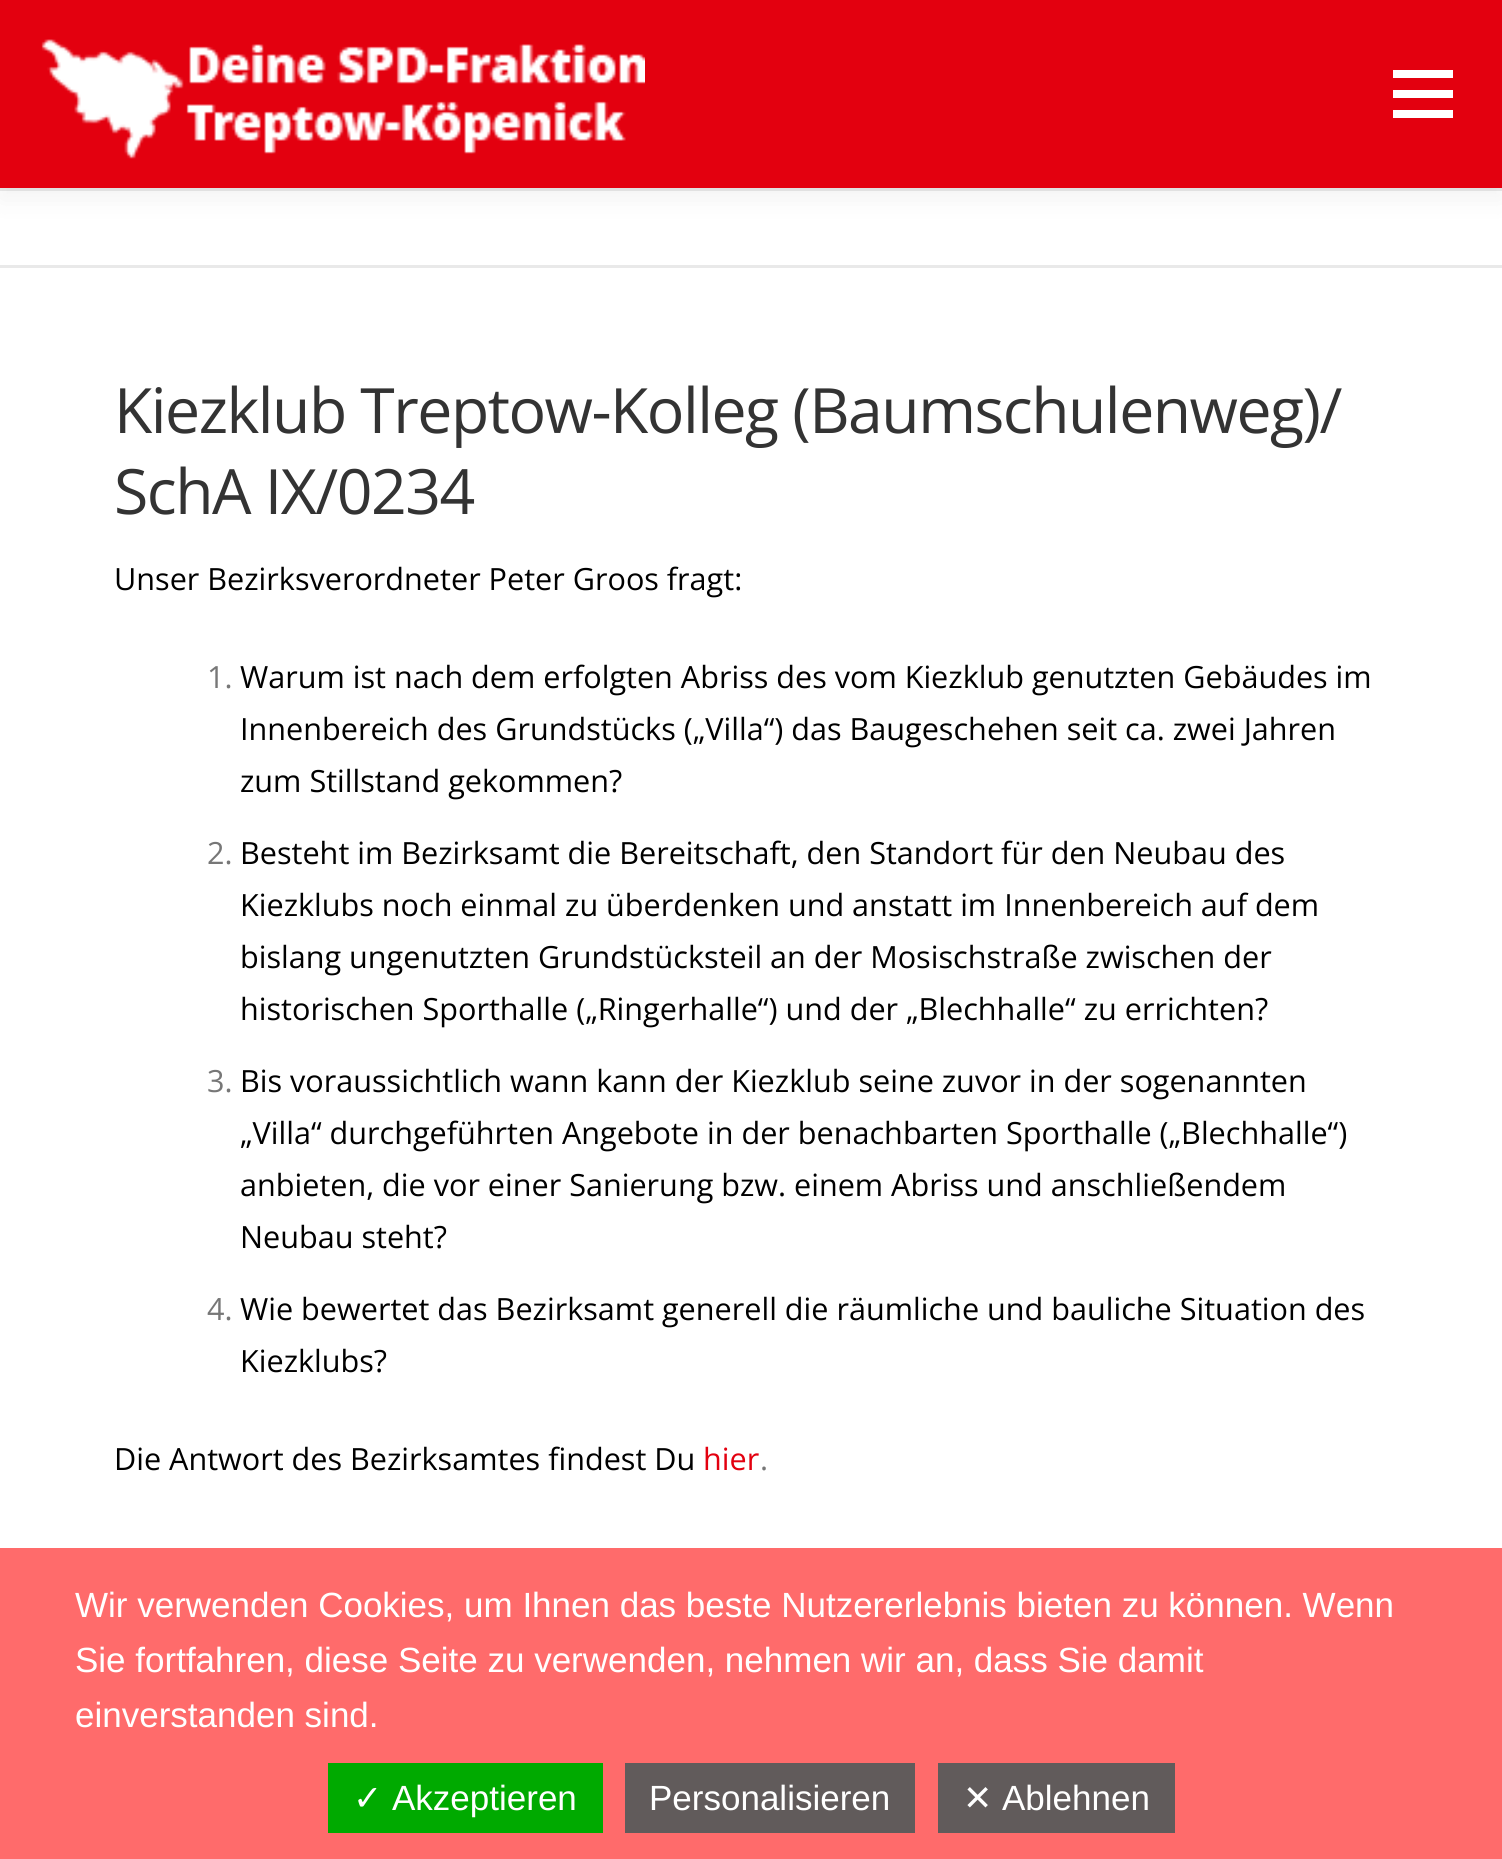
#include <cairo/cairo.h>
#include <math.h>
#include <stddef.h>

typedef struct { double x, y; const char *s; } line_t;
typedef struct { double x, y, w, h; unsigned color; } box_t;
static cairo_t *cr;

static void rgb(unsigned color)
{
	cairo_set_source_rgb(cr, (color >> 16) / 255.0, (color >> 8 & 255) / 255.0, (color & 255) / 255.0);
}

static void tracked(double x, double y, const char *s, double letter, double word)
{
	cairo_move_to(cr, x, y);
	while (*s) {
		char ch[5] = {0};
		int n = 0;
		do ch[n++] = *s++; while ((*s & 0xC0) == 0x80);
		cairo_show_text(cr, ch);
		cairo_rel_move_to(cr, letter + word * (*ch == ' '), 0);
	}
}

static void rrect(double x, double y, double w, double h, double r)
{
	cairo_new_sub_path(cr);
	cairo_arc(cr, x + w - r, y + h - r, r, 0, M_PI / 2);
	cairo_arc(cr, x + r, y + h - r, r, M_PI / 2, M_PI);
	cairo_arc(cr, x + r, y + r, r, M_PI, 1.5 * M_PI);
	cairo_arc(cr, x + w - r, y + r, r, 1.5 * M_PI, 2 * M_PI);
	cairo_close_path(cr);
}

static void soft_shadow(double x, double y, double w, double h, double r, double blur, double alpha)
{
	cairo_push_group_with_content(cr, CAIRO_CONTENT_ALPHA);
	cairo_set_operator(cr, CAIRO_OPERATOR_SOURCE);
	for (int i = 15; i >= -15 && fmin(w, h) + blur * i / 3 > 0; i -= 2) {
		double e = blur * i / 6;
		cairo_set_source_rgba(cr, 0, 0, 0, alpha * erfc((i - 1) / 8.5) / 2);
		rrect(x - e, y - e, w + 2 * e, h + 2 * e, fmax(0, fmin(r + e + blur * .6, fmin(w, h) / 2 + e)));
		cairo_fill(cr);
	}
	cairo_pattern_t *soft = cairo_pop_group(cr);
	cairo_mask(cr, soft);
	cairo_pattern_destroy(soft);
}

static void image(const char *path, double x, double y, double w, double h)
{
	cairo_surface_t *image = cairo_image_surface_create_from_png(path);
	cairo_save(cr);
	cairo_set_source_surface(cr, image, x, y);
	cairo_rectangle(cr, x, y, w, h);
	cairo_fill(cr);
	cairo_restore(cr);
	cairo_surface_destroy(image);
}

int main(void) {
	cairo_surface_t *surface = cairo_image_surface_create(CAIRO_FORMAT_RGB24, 1502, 1859);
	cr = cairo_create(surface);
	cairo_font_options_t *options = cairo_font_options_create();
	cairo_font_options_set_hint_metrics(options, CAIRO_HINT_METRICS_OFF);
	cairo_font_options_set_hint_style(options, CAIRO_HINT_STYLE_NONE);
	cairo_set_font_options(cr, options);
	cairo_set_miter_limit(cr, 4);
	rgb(0xffffff);
	cairo_paint(cr);
	rgb(0xe9e9e9);
	cairo_rectangle(cr, 0, 188, 1502, 3);
	cairo_fill(cr);
	rgb(0x323232);
	soft_shadow(0, 13, 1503, 187, 0, 12.5, 0.06);
	rgb(0xe3000f);
	cairo_rectangle(cr, 0, 0, 1502, 188);
	cairo_fill(cr);
	image("img/1.png", 41, 39, 604, 120);
	{
		static const box_t items[] = {
			{1393, 90, 60, 8, 0xffffff},
			{1393, 70, 60, 8, 0xffffff},
			{1393, 110, 60, 8, 0xffffff},
			{0, 265, 1502, 3, 0xe9e9e9},
			{0, 1548, 1502, 311, 0xff6b6b},
			{328, 1763, 275, 70, 0x00aa00},
			{625, 1763, 290, 70, 0x615b5b},
			{938, 1763, 237, 70, 0x615b5b},
		};
		for (size_t i = 0; i < sizeof items / sizeof *items; i++) {
			rgb(items[i].color);
			cairo_rectangle(cr, items[i].x, items[i].y, items[i].w, items[i].h);
			cairo_fill(cr);
		}
	}
	cairo_select_font_face(cr, "Open Sans", CAIRO_FONT_SLANT_NORMAL, CAIRO_FONT_WEIGHT_NORMAL);
	cairo_set_font_size(cr, 62.5);
	rgb(0x333333);
	tracked(114, 433, "Kiezklub Treptow-Kolleg (Baumschulenweg)/", -1.5, 0);
	tracked(114, 514, "SchA IX/0234", -1.5, 0);
	cairo_set_font_size(cr, 30.6);
	rgb(0x000000);
	cairo_move_to(cr, 114, 590);
	cairo_show_text(cr, "Unser Bezirksverordneter Peter Groos fragt:");
	rgb(0x777777);
	cairo_move_to(cr, 207, 688);
	cairo_show_text(cr, "1.");
	rgb(0x000000);
	{
		static const line_t items[] = {
			{240, 688, "Warum ist nach dem erfolgten Abriss des vom Kiezklub genutzten Gebäudes im"},
			{240, 740, "Innenbereich des Grundstücks („Villa“) das Baugeschehen seit ca. zwei Jahren"},
			{240, 792, "zum Stillstand gekommen?"},
		};
		for (size_t i = 0; i < sizeof items / sizeof *items; i++) {
			cairo_move_to(cr, items[i].x, items[i].y);
			cairo_show_text(cr, items[i].s);
		}
	}
	rgb(0x777777);
	cairo_move_to(cr, 207, 864);
	cairo_show_text(cr, "2.");
	rgb(0x000000);
	{
		static const line_t items[] = {
			{240, 864, "Besteht im Bezirksamt die Bereitschaft, den Standort für den Neubau des"},
			{240, 916, "Kiezklubs noch einmal zu überdenken und anstatt im Innenbereich auf dem"},
			{240, 968, "bislang ungenutzten Grundstücksteil an der Mosischstraße zwischen der"},
			{240, 1020, "historischen Sporthalle („Ringerhalle“) und der „Blechhalle“ zu errichten?"},
		};
		for (size_t i = 0; i < sizeof items / sizeof *items; i++) {
			cairo_move_to(cr, items[i].x, items[i].y);
			cairo_show_text(cr, items[i].s);
		}
	}
	rgb(0x777777);
	cairo_move_to(cr, 207, 1092);
	cairo_show_text(cr, "3.");
	rgb(0x000000);
	{
		static const line_t items[] = {
			{240, 1092, "Bis voraussichtlich wann kann der Kiezklub seine zuvor in der sogenannten"},
			{240, 1144, "„Villa“ durchgeführten Angebote in der benachbarten Sporthalle („Blechhalle“)"},
			{240, 1196, "anbieten, die vor einer Sanierung bzw. einem Abriss und anschließendem"},
			{240, 1248, "Neubau steht?"},
		};
		for (size_t i = 0; i < sizeof items / sizeof *items; i++) {
			cairo_move_to(cr, items[i].x, items[i].y);
			cairo_show_text(cr, items[i].s);
		}
	}
	rgb(0x777777);
	cairo_move_to(cr, 207, 1320);
	cairo_show_text(cr, "4.");
	rgb(0x000000);
	{
		static const line_t items[] = {
			{240, 1320, "Wie bewertet das Bezirksamt generell die räumliche und bauliche Situation des"},
			{240, 1372, "Kiezklubs?"},
			{114, 1470, "Die Antwort des Bezirksamtes findest Du"},
		};
		for (size_t i = 0; i < sizeof items / sizeof *items; i++) {
			cairo_move_to(cr, items[i].x, items[i].y);
			cairo_show_text(cr, items[i].s);
		}
	}
	rgb(0xe3000f);
	cairo_move_to(cr, 703, 1470);
	cairo_show_text(cr, "hier");
	rgb(0x777777);
	cairo_move_to(cr, 760, 1470);
	cairo_show_text(cr, ".");
	cairo_select_font_face(cr, "Liberation Sans", CAIRO_FONT_SLANT_NORMAL, CAIRO_FONT_WEIGHT_NORMAL);
	cairo_set_font_size(cr, 35);
	rgb(0xffffff);
	{
		static const line_t items[] = {
			{75, 1617, "Wir verwenden Cookies, um Ihnen das beste Nutzererlebnis bieten zu können. Wenn"},
			{75, 1672, "Sie fortfahren, diese Seite zu verwenden, nehmen wir an, dass Sie damit"},
			{75, 1727, "einverstanden sind."},
		};
		for (size_t i = 0; i < sizeof items / sizeof *items; i++) {
			cairo_move_to(cr, items[i].x, items[i].y);
			cairo_show_text(cr, items[i].s);
		}
	}
	cairo_select_font_face(cr, "DejaVu Sans", CAIRO_FONT_SLANT_NORMAL, CAIRO_FONT_WEIGHT_NORMAL);
	cairo_move_to(cr, 353, 1810);
	cairo_show_text(cr, "✓");
	cairo_select_font_face(cr, "Liberation Sans", CAIRO_FONT_SLANT_NORMAL, CAIRO_FONT_WEIGHT_NORMAL);
	cairo_move_to(cr, 392, 1810);
	cairo_show_text(cr, "Akzeptieren");
	cairo_move_to(cr, 649, 1810);
	cairo_show_text(cr, "Personalisieren");
	cairo_select_font_face(cr, "DejaVu Sans", CAIRO_FONT_SLANT_NORMAL, CAIRO_FONT_WEIGHT_NORMAL);
	cairo_move_to(cr, 963, 1810);
	cairo_show_text(cr, "✕");
	cairo_select_font_face(cr, "Liberation Sans", CAIRO_FONT_SLANT_NORMAL, CAIRO_FONT_WEIGHT_NORMAL);
	cairo_move_to(cr, 1002, 1810);
	cairo_show_text(cr, "Ablehnen");
	cairo_surface_write_to_png(surface, "page.png");
	cairo_font_options_destroy(options);
	cairo_destroy(cr);
	cairo_surface_destroy(surface);
	return 0;
}
